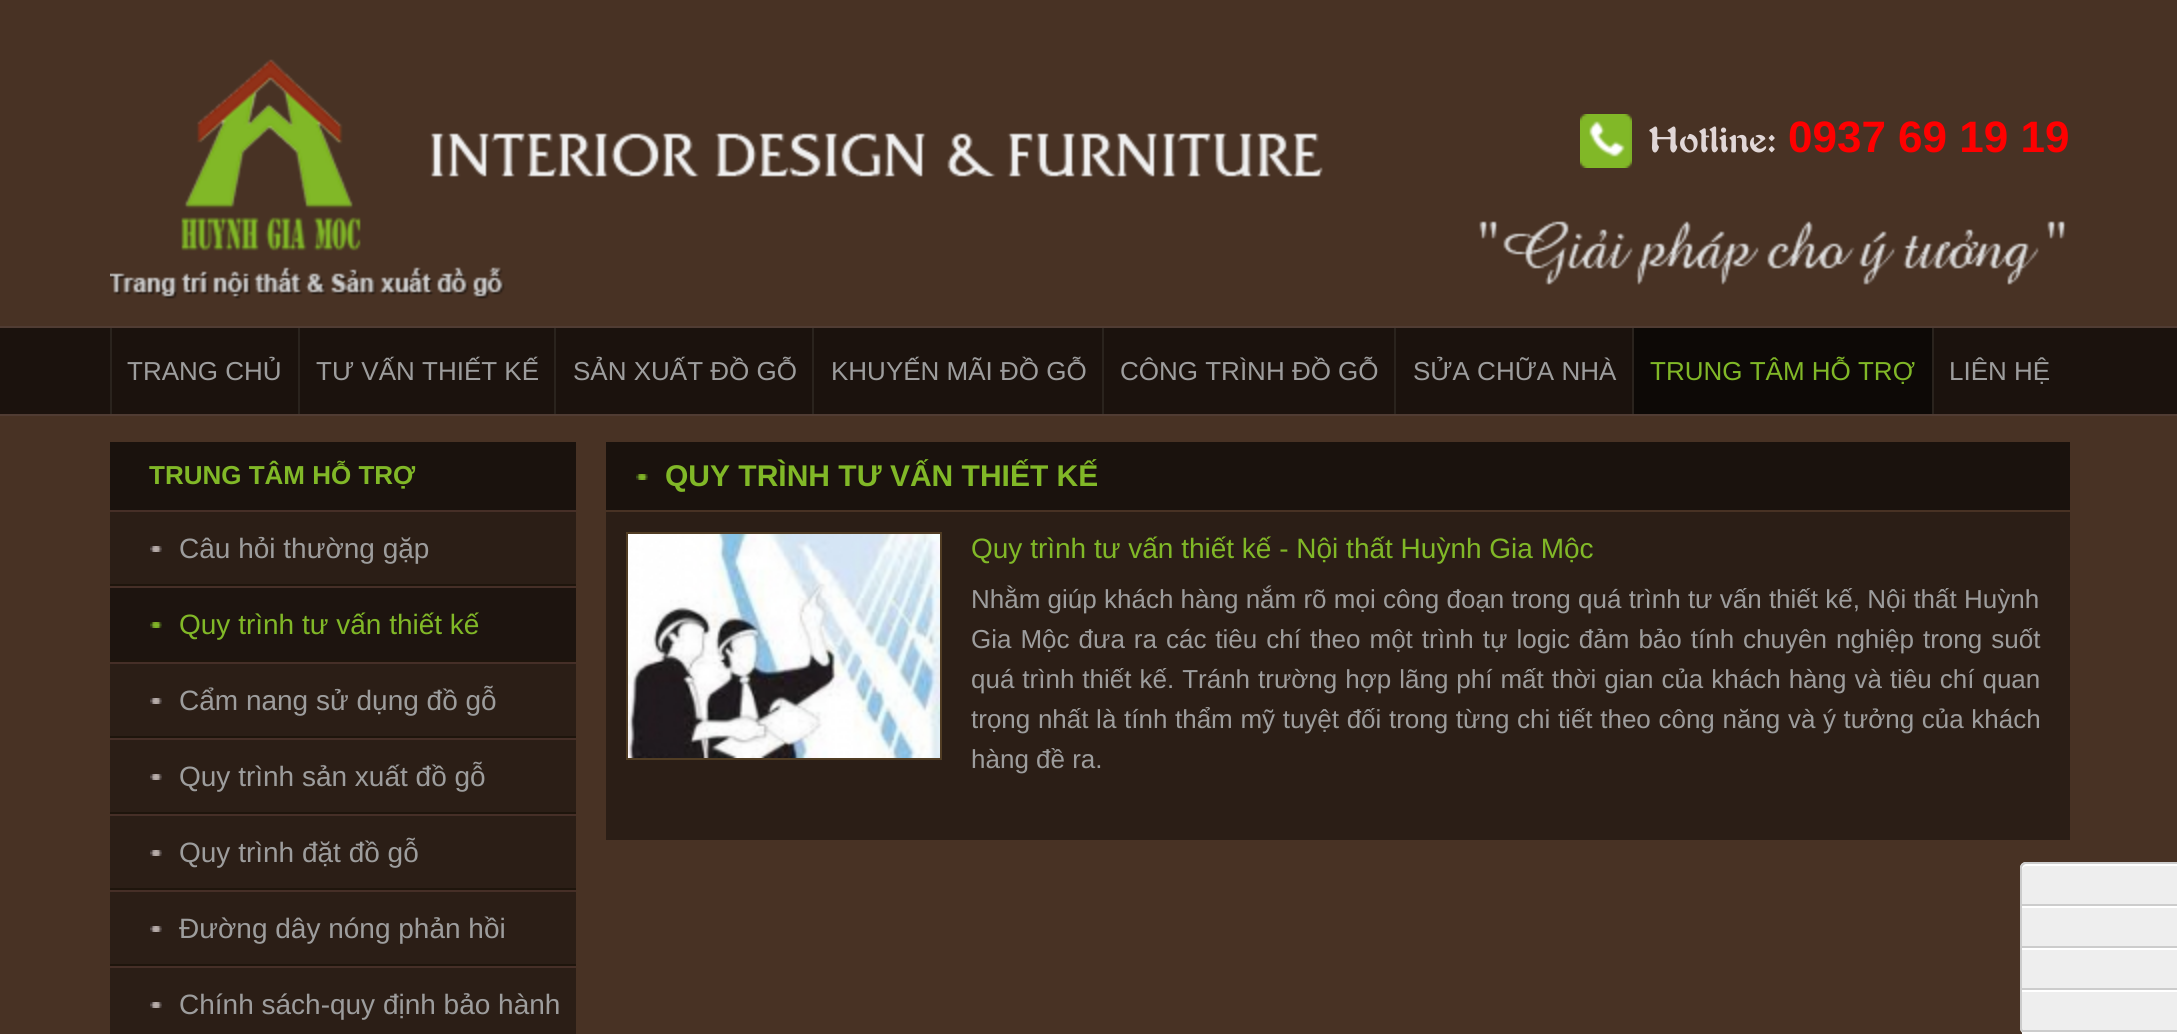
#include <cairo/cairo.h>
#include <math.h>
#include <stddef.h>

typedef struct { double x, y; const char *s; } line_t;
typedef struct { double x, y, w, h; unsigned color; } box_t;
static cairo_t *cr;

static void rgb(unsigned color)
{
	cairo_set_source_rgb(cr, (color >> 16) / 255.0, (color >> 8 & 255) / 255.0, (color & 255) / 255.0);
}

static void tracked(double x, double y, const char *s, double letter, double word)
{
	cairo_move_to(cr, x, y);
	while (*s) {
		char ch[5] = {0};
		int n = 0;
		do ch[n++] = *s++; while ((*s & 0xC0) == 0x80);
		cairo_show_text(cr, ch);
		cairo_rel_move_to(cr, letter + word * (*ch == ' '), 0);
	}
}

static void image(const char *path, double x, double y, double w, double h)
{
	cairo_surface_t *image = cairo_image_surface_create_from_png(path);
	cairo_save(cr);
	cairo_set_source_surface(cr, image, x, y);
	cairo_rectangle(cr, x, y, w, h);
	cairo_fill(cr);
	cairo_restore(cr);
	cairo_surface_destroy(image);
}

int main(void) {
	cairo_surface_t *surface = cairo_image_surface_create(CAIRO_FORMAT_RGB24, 2177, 1034);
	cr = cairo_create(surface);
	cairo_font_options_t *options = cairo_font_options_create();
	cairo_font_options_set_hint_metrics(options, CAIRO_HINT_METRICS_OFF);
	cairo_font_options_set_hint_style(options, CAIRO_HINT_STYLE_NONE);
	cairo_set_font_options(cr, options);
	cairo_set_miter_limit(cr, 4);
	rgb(0x483224);
	cairo_paint(cr);
	image("img/1.png", 1479, 221, 587, 64);
	image("img/2.png", 110, 59, 1213, 240);
	image("img/3.png", 1580, 114, 52, 54);
	{
		static const box_t items[] = {
			{0, 328, 2177, 86, 0x1b120d},
			{0, 326, 2177, 2, 0x503c33},
			{0, 414, 2177, 2, 0x503c33},
			{110, 328, 2, 86, 0x2a231d},
			{298, 328, 2, 86, 0x2a231d},
			{554, 328, 2, 86, 0x2a231d},
			{812, 328, 2, 86, 0x2a231d},
			{1102, 328, 2, 86, 0x2a231d},
			{1394, 328, 2, 86, 0x2a231d},
			{1634, 328, 298, 86, 0x0d0906},
			{1632, 328, 2, 86, 0x2a231d},
			{1932, 328, 2, 86, 0x2a231d},
			{110, 442, 466, 68, 0x1a120d},
			{110, 512, 466, 72, 0x2b1e16},
			{110, 510, 466, 2, 0x462f27},
			{110, 584, 466, 2, 0x1e150c},
		};
		for (size_t i = 0; i < sizeof items / sizeof *items; i++) {
			rgb(items[i].color);
			cairo_rectangle(cr, items[i].x, items[i].y, items[i].w, items[i].h);
			cairo_fill(cr);
		}
	}
	image("img/4.png", 150, 546, 12, 6);
	{
		static const box_t items[] = {
			{110, 588, 466, 72, 0x1d140f},
			{110, 586, 466, 2, 0x462f27},
			{110, 660, 466, 2, 0x1e150c},
		};
		for (size_t i = 0; i < sizeof items / sizeof *items; i++) {
			rgb(items[i].color);
			cairo_rectangle(cr, items[i].x, items[i].y, items[i].w, items[i].h);
			cairo_fill(cr);
		}
	}
	image("img/5.png", 150, 622, 12, 6);
	{
		static const box_t items[] = {
			{110, 664, 466, 72, 0x2b1e16},
			{110, 662, 466, 2, 0x462f27},
			{110, 736, 466, 2, 0x1e150c},
		};
		for (size_t i = 0; i < sizeof items / sizeof *items; i++) {
			rgb(items[i].color);
			cairo_rectangle(cr, items[i].x, items[i].y, items[i].w, items[i].h);
			cairo_fill(cr);
		}
	}
	image("img/4.png", 150, 698, 12, 6);
	{
		static const box_t items[] = {
			{110, 740, 466, 72, 0x2b1e16},
			{110, 738, 466, 2, 0x462f27},
			{110, 812, 466, 2, 0x1e150c},
		};
		for (size_t i = 0; i < sizeof items / sizeof *items; i++) {
			rgb(items[i].color);
			cairo_rectangle(cr, items[i].x, items[i].y, items[i].w, items[i].h);
			cairo_fill(cr);
		}
	}
	image("img/4.png", 150, 774, 12, 6);
	{
		static const box_t items[] = {
			{110, 816, 466, 72, 0x2b1e16},
			{110, 814, 466, 2, 0x462f27},
			{110, 888, 466, 2, 0x1e150c},
		};
		for (size_t i = 0; i < sizeof items / sizeof *items; i++) {
			rgb(items[i].color);
			cairo_rectangle(cr, items[i].x, items[i].y, items[i].w, items[i].h);
			cairo_fill(cr);
		}
	}
	image("img/4.png", 150, 850, 12, 6);
	{
		static const box_t items[] = {
			{110, 892, 466, 72, 0x2b1e16},
			{110, 890, 466, 2, 0x462f27},
			{110, 964, 466, 2, 0x1e150c},
		};
		for (size_t i = 0; i < sizeof items / sizeof *items; i++) {
			rgb(items[i].color);
			cairo_rectangle(cr, items[i].x, items[i].y, items[i].w, items[i].h);
			cairo_fill(cr);
		}
	}
	image("img/4.png", 150, 926, 12, 6);
	rgb(0x2b1e16);
	cairo_rectangle(cr, 110, 968, 466, 66);
	cairo_fill(cr);
	rgb(0x462f27);
	cairo_rectangle(cr, 110, 966, 466, 2);
	cairo_fill(cr);
	image("img/4.png", 150, 1002, 12, 6);
	rgb(0x2b1e16);
	cairo_rectangle(cr, 606, 512, 1464, 328);
	cairo_fill(cr);
	rgb(0x1a120d);
	cairo_rectangle(cr, 606, 442, 1464, 68);
	cairo_fill(cr);
	image("img/5.png", 636, 474, 12, 6);
	cairo_rectangle(cr, 627, 533, 314, 226);
	rgb(0x513d24);
	cairo_stroke(cr);
	image("img/6.png", 628, 534, 312, 224);
	rgb(0xeeeeee);
	cairo_new_path(cr);
	cairo_move_to(cr, 2026, 862);
	cairo_line_to(cr, 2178, 862);
	cairo_line_to(cr, 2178, 1034);
	cairo_line_to(cr, 2026, 1034);
	cairo_curve_to(cr, 2022.5, 1034, 2020, 1031.5, 2020, 1028);
	cairo_line_to(cr, 2020, 868);
	cairo_curve_to(cr, 2020, 864.5, 2022.5, 862, 2026, 862);
	cairo_close_path(cr);
	cairo_fill(cr);
	rgb(0xffffff);
	cairo_new_path(cr);
	cairo_move_to(cr, 2026, 866);
	cairo_line_to(cr, 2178, 866);
	cairo_line_to(cr, 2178, 864);
	cairo_line_to(cr, 2026, 864);
	cairo_curve_to(cr, 2024, 864, 2022, 866, 2022, 868);
	cairo_line_to(cr, 2022, 870);
	cairo_curve_to(cr, 2022, 868, 2024, 866, 2026, 866);
	cairo_close_path(cr);
	cairo_fill(cr);
	rgb(0xcccccc);
	cairo_set_fill_rule(cr, CAIRO_FILL_RULE_EVEN_ODD);
	cairo_new_path(cr);
	cairo_move_to(cr, 2026, 862);
	cairo_line_to(cr, 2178, 862);
	cairo_line_to(cr, 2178, 1034);
	cairo_line_to(cr, 2026, 1034);
	cairo_curve_to(cr, 2023, 1034, 2020, 1031, 2020, 1028);
	cairo_line_to(cr, 2020, 868);
	cairo_curve_to(cr, 2020, 865, 2023, 862, 2026, 862);
	cairo_close_path(cr);
	cairo_move_to(cr, 2026, 864);
	cairo_line_to(cr, 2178, 864);
	cairo_line_to(cr, 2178, 1032);
	cairo_line_to(cr, 2026, 1032);
	cairo_curve_to(cr, 2024, 1032, 2022, 1030, 2022, 1028);
	cairo_line_to(cr, 2022, 868);
	cairo_curve_to(cr, 2022, 866, 2024, 864, 2026, 864);
	cairo_close_path(cr);
	cairo_fill(cr);
	{
		static const box_t items[] = {
			{2022, 906, 155, 2, 0xffffff},
			{2022, 904, 155, 2, 0xcccccc},
			{2022, 948, 155, 2, 0xffffff},
			{2022, 946, 155, 2, 0xcccccc},
			{2022, 990, 155, 2, 0xffffff},
			{2022, 988, 155, 2, 0xcccccc},
			{2022, 1032, 155, 2, 0xffffff},
			{2022, 1030, 155, 2, 0xcccccc},
		};
		for (size_t i = 0; i < sizeof items / sizeof *items; i++) {
			rgb(items[i].color);
			cairo_rectangle(cr, items[i].x, items[i].y, items[i].w, items[i].h);
			cairo_fill(cr);
		}
	}
	cairo_select_font_face(cr, "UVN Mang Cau", CAIRO_FONT_SLANT_NORMAL, CAIRO_FONT_WEIGHT_BOLD);
	cairo_set_font_size(cr, 36);
	rgb(0xe1d7d7);
	cairo_move_to(cr, 1649, 152);
	cairo_show_text(cr, "Hotline:");
	cairo_select_font_face(cr, "Liberation Sans", CAIRO_FONT_SLANT_NORMAL, CAIRO_FONT_WEIGHT_BOLD);
	cairo_set_font_size(cr, 44);
	rgb(0xff0000);
	cairo_move_to(cr, 1788, 152);
	cairo_show_text(cr, "0937 69 19 19");
	cairo_select_font_face(cr, "Liberation Sans", CAIRO_FONT_SLANT_NORMAL, CAIRO_FONT_WEIGHT_NORMAL);
	cairo_set_font_size(cr, 26);
	rgb(0x9d9d9d);
	{
		static const line_t items[] = {
			{127, 380, "TRANG CHỦ"},
			{316, 380, "TƯ VẤN THIẾT KẾ"},
			{573, 380, "SẢN XUẤT ĐỒ GỖ"},
			{831, 380, "KHUYẾN MÃI ĐỒ GỖ"},
			{1120, 380, "CÔNG TRÌNH ĐỒ GỖ"},
			{1413, 380, "SỬA CHỮA NHÀ"},
		};
		for (size_t i = 0; i < sizeof items / sizeof *items; i++) {
			cairo_move_to(cr, items[i].x, items[i].y);
			cairo_show_text(cr, items[i].s);
		}
	}
	rgb(0x81b827);
	cairo_move_to(cr, 1650, 380);
	cairo_show_text(cr, "TRUNG TÂM HỖ TRỢ");
	rgb(0x9d9d9d);
	cairo_move_to(cr, 1949, 380);
	cairo_show_text(cr, "LIÊN HỆ");
	cairo_select_font_face(cr, "Liberation Sans", CAIRO_FONT_SLANT_NORMAL, CAIRO_FONT_WEIGHT_BOLD);
	rgb(0x81b827);
	cairo_move_to(cr, 149, 484);
	cairo_show_text(cr, "TRUNG TÂM HỖ TRỢ");
	cairo_select_font_face(cr, "Liberation Sans", CAIRO_FONT_SLANT_NORMAL, CAIRO_FONT_WEIGHT_NORMAL);
	cairo_set_font_size(cr, 28);
	rgb(0x9d9d9d);
	cairo_move_to(cr, 179, 558);
	cairo_show_text(cr, "Câu hỏi thường gặp");
	rgb(0x81b827);
	cairo_move_to(cr, 179, 634);
	cairo_show_text(cr, "Quy trình tư vấn thiết kế");
	rgb(0x9d9d9d);
	{
		static const line_t items[] = {
			{179, 710, "Cẩm nang sử dụng đồ gỗ"},
			{179, 786, "Quy trình sản xuất đồ gỗ"},
			{179, 862, "Quy trình đặt đồ gỗ"},
			{179, 938, "Đường dây nóng phản hồi"},
			{179, 1014, "Chính sách-quy định bảo hành"},
		};
		for (size_t i = 0; i < sizeof items / sizeof *items; i++) {
			cairo_move_to(cr, items[i].x, items[i].y);
			cairo_show_text(cr, items[i].s);
		}
	}
	cairo_select_font_face(cr, "Liberation Sans", CAIRO_FONT_SLANT_NORMAL, CAIRO_FONT_WEIGHT_BOLD);
	cairo_set_font_size(cr, 30);
	rgb(0x81b827);
	cairo_move_to(cr, 665, 486);
	cairo_show_text(cr, "QUY TRÌNH TƯ VẤN THIẾT KẾ");
	cairo_select_font_face(cr, "Liberation Sans", CAIRO_FONT_SLANT_NORMAL, CAIRO_FONT_WEIGHT_NORMAL);
	cairo_set_font_size(cr, 28);
	cairo_move_to(cr, 971, 558);
	cairo_show_text(cr, "Quy trình tư vấn thiết kế - Nội thất Huỳnh Gia Mộc");
	cairo_set_font_size(cr, 26);
	rgb(0x9d9d9d);
	cairo_move_to(cr, 971, 608);
	cairo_show_text(cr, "Nhằm giúp khách hàng nắm rõ mọi công đoạn trong quá trình tư vấn thiết kế, Nội thất Huỳnh");
	tracked(971, 648, "Gia Mộc đưa ra các tiêu chí theo một trình tự logic đảm bảo tính chuyên nghiệp trong suốt", 0, 1.75);
	tracked(971, 688, "quá trình thiết kế. Tránh trường hợp lãng phí mất thời gian của khách hàng và tiêu chí quan", 0, 0.75);
	tracked(971, 728, "trọng nhất là tính thẩm mỹ tuyệt đối trong từng chi tiết theo công năng và ý tưởng của khách", 0, 0.4);
	cairo_move_to(cr, 971, 768);
	cairo_show_text(cr, "hàng đề ra.");
	cairo_surface_write_to_png(surface, "page.png");
	cairo_font_options_destroy(options);
	cairo_destroy(cr);
	cairo_surface_destroy(surface);
	return 0;
}
